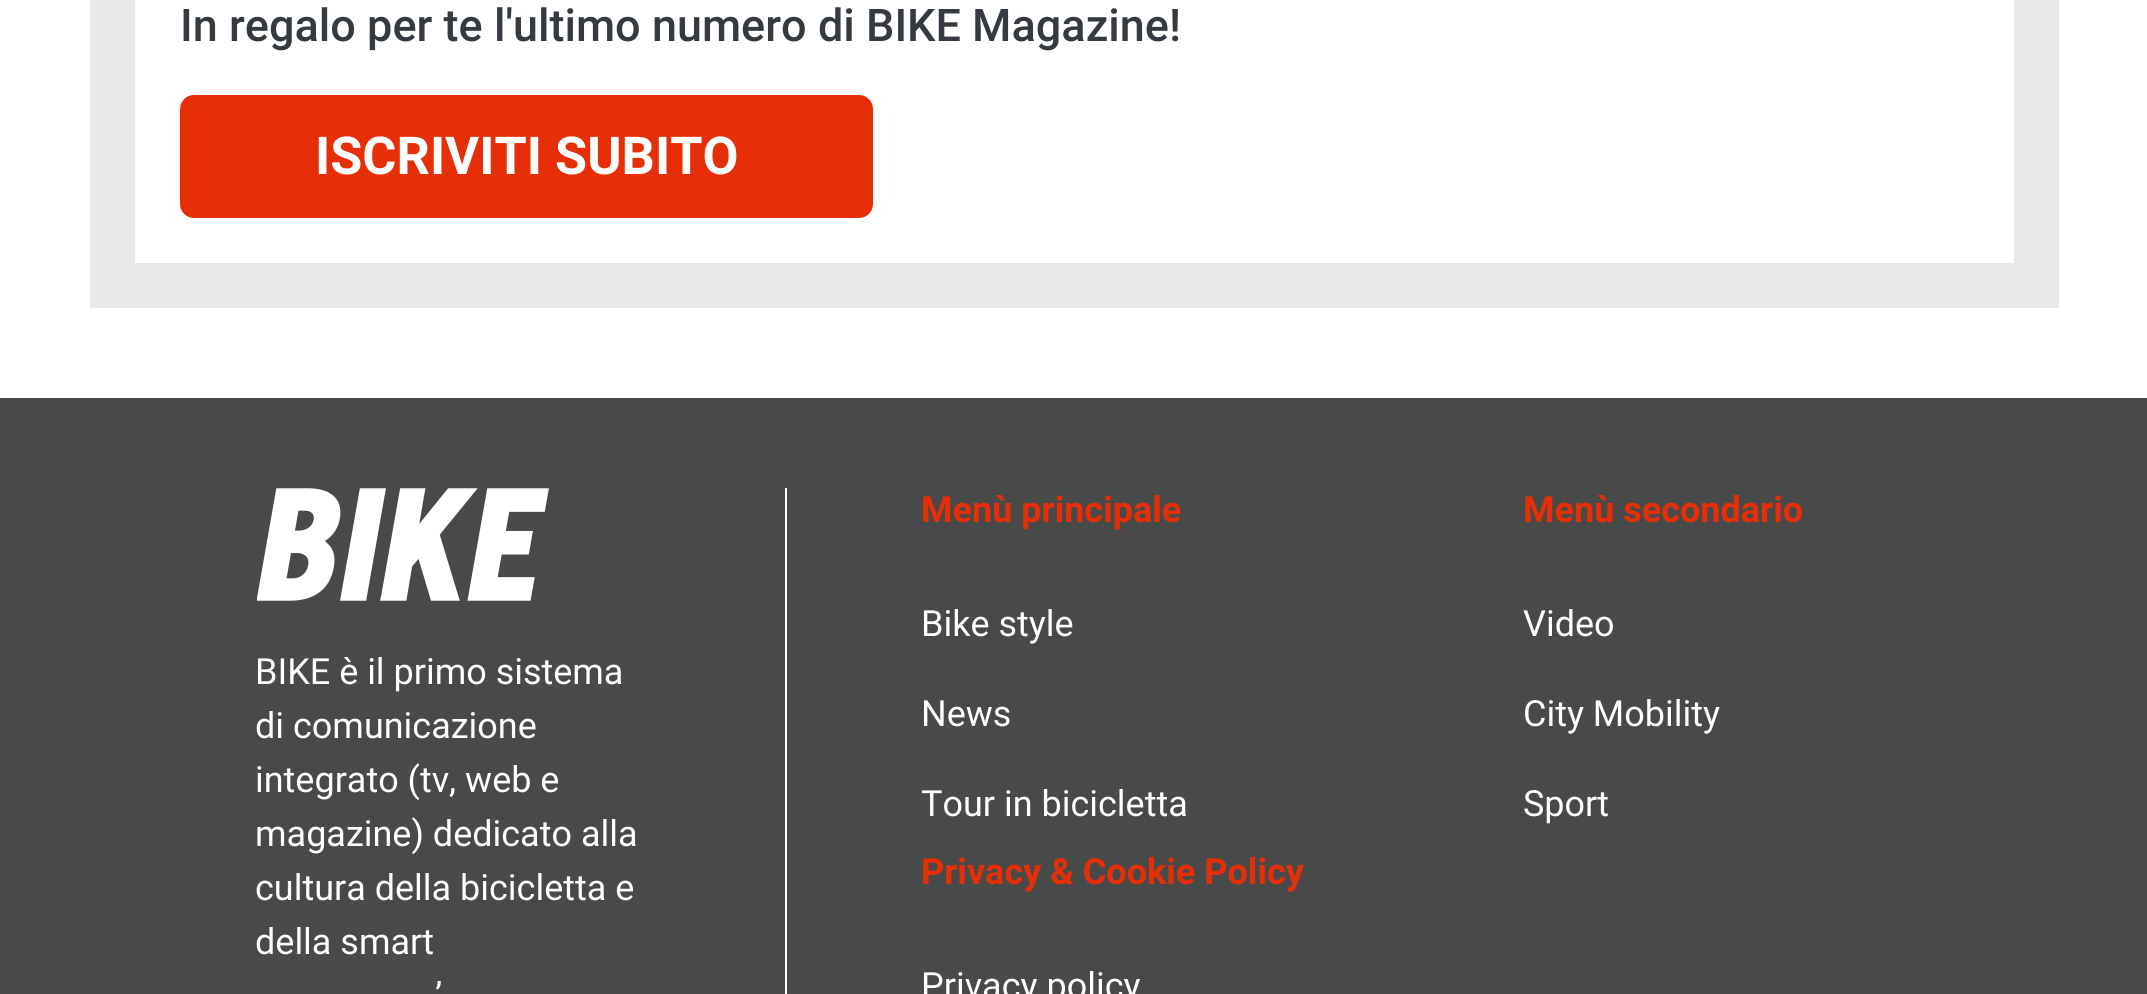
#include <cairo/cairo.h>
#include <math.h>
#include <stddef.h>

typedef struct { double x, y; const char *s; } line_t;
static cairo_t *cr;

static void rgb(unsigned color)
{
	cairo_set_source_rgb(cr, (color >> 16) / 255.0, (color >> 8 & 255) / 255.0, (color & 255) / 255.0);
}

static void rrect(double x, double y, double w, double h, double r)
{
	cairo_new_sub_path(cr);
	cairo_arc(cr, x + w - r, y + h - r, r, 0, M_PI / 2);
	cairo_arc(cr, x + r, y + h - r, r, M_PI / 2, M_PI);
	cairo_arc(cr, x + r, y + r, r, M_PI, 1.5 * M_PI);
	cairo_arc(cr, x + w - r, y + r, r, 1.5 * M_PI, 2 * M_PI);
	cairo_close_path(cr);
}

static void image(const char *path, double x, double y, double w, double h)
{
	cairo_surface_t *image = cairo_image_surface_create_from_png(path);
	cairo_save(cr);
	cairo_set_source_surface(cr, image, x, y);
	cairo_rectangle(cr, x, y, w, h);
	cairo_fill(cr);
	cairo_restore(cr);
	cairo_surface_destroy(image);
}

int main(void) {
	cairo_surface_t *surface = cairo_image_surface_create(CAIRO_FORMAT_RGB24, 2147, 994);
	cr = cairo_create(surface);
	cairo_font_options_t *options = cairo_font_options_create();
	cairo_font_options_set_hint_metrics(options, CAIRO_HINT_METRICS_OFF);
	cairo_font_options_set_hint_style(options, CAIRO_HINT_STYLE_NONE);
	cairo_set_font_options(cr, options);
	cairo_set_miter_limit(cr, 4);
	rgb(0xffffff);
	cairo_paint(cr);
	cairo_rectangle(cr, 112.5, -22.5, 1924, 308);
	rgb(0xe9e9e9);
	cairo_set_line_width(cr, 45);
	cairo_stroke(cr);
	rgb(0xe62f06);
	rrect(180, 95, 693, 123, 14);
	cairo_fill(cr);
	rgb(0x484949);
	cairo_rectangle(cr, 0, 398, 2147, 596);
	cairo_fill(cr);
	rgb(0xffffff);
	cairo_rectangle(cr, 785, 488, 2, 506);
	cairo_fill(cr);
	image("img/1.png", 257, 488, 292, 113);
	cairo_select_font_face(cr, "Roboto Medium", CAIRO_FONT_SLANT_NORMAL, CAIRO_FONT_WEIGHT_NORMAL);
	cairo_set_font_size(cr, 45);
	rgb(0x343a40);
	cairo_move_to(cr, 180, 41);
	cairo_show_text(cr, "In regalo per te l'ultimo numero di BIKE Magazine!");
	cairo_select_font_face(cr, "Roboto", CAIRO_FONT_SLANT_NORMAL, CAIRO_FONT_WEIGHT_BOLD);
	cairo_set_font_size(cr, 52.25);
	rgb(0xffffff);
	cairo_move_to(cr, 315, 174);
	cairo_show_text(cr, "ISCRIVITI SUBITO");
	cairo_select_font_face(cr, "Roboto", CAIRO_FONT_SLANT_NORMAL, CAIRO_FONT_WEIGHT_NORMAL);
	cairo_set_font_size(cr, 36);
	{
		static const line_t items[] = {
			{255, 684, "BIKE è il primo sistema"},
			{255, 738, "di comunicazione"},
			{255, 792, "integrato (tv, web e"},
			{255, 846, "magazine) dedicato alla"},
			{255, 900, "cultura della bicicletta e"},
			{255, 954, "della smart"},
			{435, 1008, "’"},
		};
		for (size_t i = 0; i < sizeof items / sizeof *items; i++) {
			cairo_move_to(cr, items[i].x, items[i].y);
			cairo_show_text(cr, items[i].s);
		}
	}
	cairo_select_font_face(cr, "Roboto", CAIRO_FONT_SLANT_NORMAL, CAIRO_FONT_WEIGHT_BOLD);
	rgb(0xe62f06);
	cairo_move_to(cr, 921, 522);
	cairo_show_text(cr, "Menù principale");
	cairo_select_font_face(cr, "Roboto", CAIRO_FONT_SLANT_NORMAL, CAIRO_FONT_WEIGHT_NORMAL);
	rgb(0xffffff);
	{
		static const line_t items[] = {
			{921, 636, "Bike style"},
			{921, 726, "News"},
			{921, 816, "Tour in bicicletta"},
		};
		for (size_t i = 0; i < sizeof items / sizeof *items; i++) {
			cairo_move_to(cr, items[i].x, items[i].y);
			cairo_show_text(cr, items[i].s);
		}
	}
	cairo_select_font_face(cr, "Roboto", CAIRO_FONT_SLANT_NORMAL, CAIRO_FONT_WEIGHT_BOLD);
	rgb(0xe62f06);
	cairo_move_to(cr, 1523, 522);
	cairo_show_text(cr, "Menù secondario");
	cairo_select_font_face(cr, "Roboto", CAIRO_FONT_SLANT_NORMAL, CAIRO_FONT_WEIGHT_NORMAL);
	rgb(0xffffff);
	{
		static const line_t items[] = {
			{1523, 636, "Video"},
			{1523, 726, "City Mobility"},
			{1523, 816, "Sport"},
		};
		for (size_t i = 0; i < sizeof items / sizeof *items; i++) {
			cairo_move_to(cr, items[i].x, items[i].y);
			cairo_show_text(cr, items[i].s);
		}
	}
	cairo_select_font_face(cr, "Roboto", CAIRO_FONT_SLANT_NORMAL, CAIRO_FONT_WEIGHT_BOLD);
	rgb(0xe62f06);
	cairo_move_to(cr, 921, 884);
	cairo_show_text(cr, "Privacy & Cookie Policy");
	cairo_select_font_face(cr, "Roboto", CAIRO_FONT_SLANT_NORMAL, CAIRO_FONT_WEIGHT_NORMAL);
	rgb(0xffffff);
	cairo_move_to(cr, 921, 998);
	cairo_show_text(cr, "Privacy policy");
	cairo_surface_write_to_png(surface, "page.png");
	cairo_font_options_destroy(options);
	cairo_destroy(cr);
	cairo_surface_destroy(surface);
	return 0;
}
